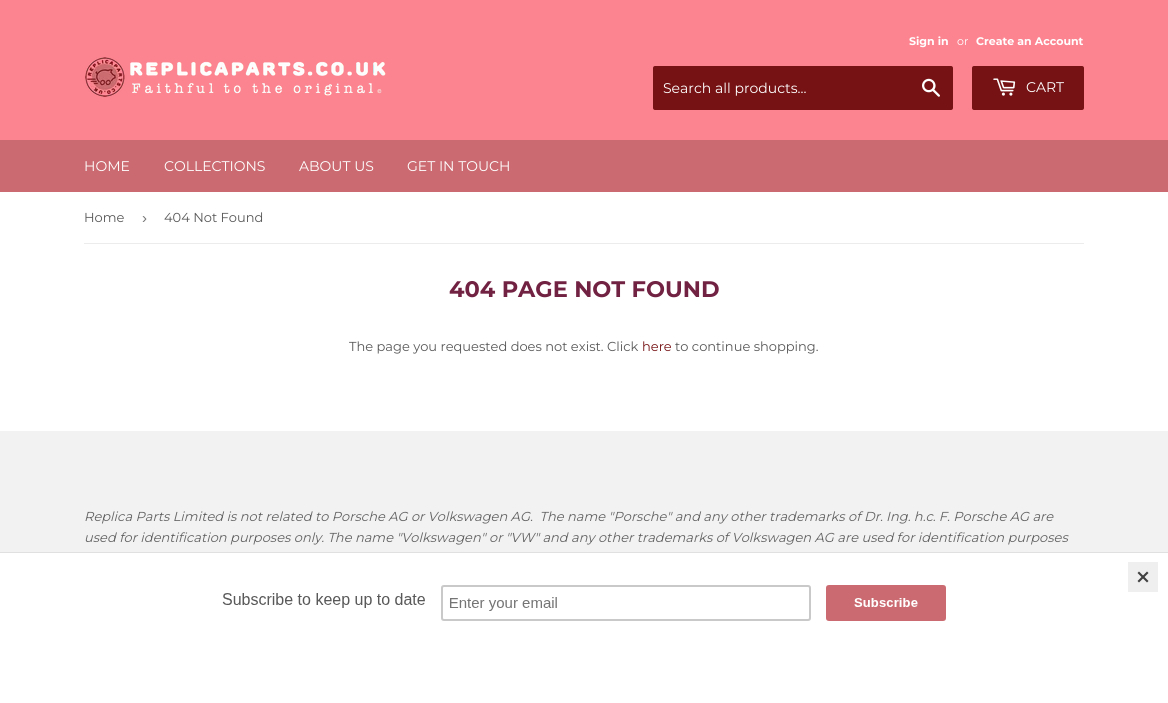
#include <cairo/cairo.h>
#include <math.h>
#include <stddef.h>

typedef struct { double x, y; const char *s; } line_t;
typedef struct { double x, y, w, h; unsigned color; } box_t;
static cairo_t *cr;

static void rgb(unsigned color)
{
	cairo_set_source_rgb(cr, (color >> 16) / 255.0, (color >> 8 & 255) / 255.0, (color & 255) / 255.0);
}

static void rrect(double x, double y, double w, double h, double r)
{
	cairo_new_sub_path(cr);
	cairo_arc(cr, x + w - r, y + h - r, r, 0, M_PI / 2);
	cairo_arc(cr, x + r, y + h - r, r, M_PI / 2, M_PI);
	cairo_arc(cr, x + r, y + r, r, M_PI, 1.5 * M_PI);
	cairo_arc(cr, x + w - r, y + r, r, 1.5 * M_PI, 2 * M_PI);
	cairo_close_path(cr);
}

static void image(const char *path, double x, double y, double w, double h)
{
	cairo_surface_t *image = cairo_image_surface_create_from_png(path);
	cairo_save(cr);
	cairo_set_source_surface(cr, image, x, y);
	cairo_rectangle(cr, x, y, w, h);
	cairo_fill(cr);
	cairo_restore(cr);
	cairo_surface_destroy(image);
}

int main(void) {
	cairo_surface_t *surface = cairo_image_surface_create(CAIRO_FORMAT_RGB24, 1168, 703);
	cr = cairo_create(surface);
	cairo_font_options_t *options = cairo_font_options_create();
	cairo_font_options_set_hint_metrics(options, CAIRO_HINT_METRICS_OFF);
	cairo_font_options_set_hint_style(options, CAIRO_HINT_STYLE_NONE);
	cairo_set_font_options(cr, options);
	cairo_set_miter_limit(cr, 4);
	rgb(0xffffff);
	cairo_paint(cr);
	rgb(0xfc8490);
	cairo_rectangle(cr, 0, 0, 1168, 140);
	cairo_fill(cr);
	image("img/1.png", 85, 57, 301, 40);
	rgb(0x761214);
	rrect(653, 66, 300, 44, 2);
	cairo_fill(cr);
	image("img/2.png", 922, 78, 18, 19);
	rrect(972, 66, 112, 44, 2);
	cairo_fill(cr);
	image("img/3.png", 993, 78, 23, 18);
	{
		static const box_t items[] = {
			{0, 140, 1168, 52, 0xcb6b71},
			{84, 243, 1000, 1, 0xececec},
			{0, 431, 1168, 121, 0xf2f2f2},
			{0, 552, 1168, 1, 0xe0e0e0},
		};
		for (size_t i = 0; i < sizeof items / sizeof *items; i++) {
			rgb(items[i].color);
			cairo_rectangle(cr, items[i].x, items[i].y, items[i].w, items[i].h);
			cairo_fill(cr);
		}
	}
	image("img/4.png", 222, 585, 724, 36);
	rgb(0xefefef);
	cairo_rectangle(cr, 1128, 562, 30, 30);
	cairo_fill(cr);
	rgb(0x414141);
	cairo_new_path(cr);
	cairo_move_to(cr, 1147, 571.5);
	cairo_line_to(cr, 1148.5, 573);
	cairo_line_to(cr, 1139, 582.5);
	cairo_line_to(cr, 1137.5, 581);
	cairo_close_path(cr);
	cairo_fill(cr);
	cairo_new_path(cr);
	cairo_move_to(cr, 1137.5, 573);
	cairo_line_to(cr, 1139, 571.5);
	cairo_line_to(cr, 1148.5, 581);
	cairo_line_to(cr, 1147, 582.5);
	cairo_close_path(cr);
	cairo_fill(cr);
	cairo_select_font_face(cr, "Montserrat", CAIRO_FONT_SLANT_NORMAL, CAIRO_FONT_WEIGHT_BOLD);
	cairo_set_font_size(cr, 11);
	rgb(0xffffff);
	cairo_move_to(cr, 909, 45);
	cairo_show_text(cr, "Sign in");
	cairo_select_font_face(cr, "Montserrat", CAIRO_FONT_SLANT_NORMAL, CAIRO_FONT_WEIGHT_NORMAL);
	cairo_move_to(cr, 957, 45);
	cairo_show_text(cr, "or");
	cairo_select_font_face(cr, "Montserrat", CAIRO_FONT_SLANT_NORMAL, CAIRO_FONT_WEIGHT_BOLD);
	cairo_move_to(cr, 976, 45);
	cairo_show_text(cr, "Create an Account");
	cairo_select_font_face(cr, "Montserrat", CAIRO_FONT_SLANT_NORMAL, CAIRO_FONT_WEIGHT_NORMAL);
	cairo_set_font_size(cr, 14);
	{
		static const line_t items[] = {
			{663, 93, "Search all products..."},
			{1026, 92, "CART"},
			{84, 171, "HOME"},
			{164, 171, "COLLECTIONS"},
			{299, 171, "ABOUT US"},
			{407, 171, "GET IN TOUCH"},
		};
		for (size_t i = 0; i < sizeof items / sizeof *items; i++) {
			cairo_move_to(cr, items[i].x, items[i].y);
			cairo_show_text(cr, items[i].s);
		}
	}
	cairo_set_font_size(cr, 13);
	rgb(0x585858);
	cairo_move_to(cr, 84, 222);
	cairo_show_text(cr, "Home");
	cairo_select_font_face(cr, "Liberation Sans", CAIRO_FONT_SLANT_NORMAL, CAIRO_FONT_WEIGHT_NORMAL);
	cairo_set_font_size(cr, 15);
	rgb(0x767676);
	cairo_move_to(cr, 142, 223);
	cairo_show_text(cr, "›");
	cairo_select_font_face(cr, "Montserrat", CAIRO_FONT_SLANT_NORMAL, CAIRO_FONT_WEIGHT_NORMAL);
	cairo_set_font_size(cr, 13);
	rgb(0x585858);
	cairo_move_to(cr, 164, 222);
	cairo_show_text(cr, "404 Not Found");
	cairo_select_font_face(cr, "Montserrat", CAIRO_FONT_SLANT_NORMAL, CAIRO_FONT_WEIGHT_BOLD);
	cairo_set_font_size(cr, 22.5);
	rgb(0x712141);
	cairo_move_to(cr, 449, 297);
	cairo_show_text(cr, "404 PAGE NOT FOUND");
	cairo_select_font_face(cr, "Montserrat", CAIRO_FONT_SLANT_NORMAL, CAIRO_FONT_WEIGHT_NORMAL);
	cairo_set_font_size(cr, 13);
	rgb(0x585858);
	cairo_move_to(cr, 349, 351);
	cairo_show_text(cr, "The page you requested does not exist. Click");
	rgb(0x761214);
	cairo_move_to(cr, 642, 351);
	cairo_show_text(cr, "here");
	rgb(0x585858);
	cairo_move_to(cr, 675, 351);
	cairo_show_text(cr, "to continue shopping.");
	cairo_select_font_face(cr, "Montserrat", CAIRO_FONT_SLANT_ITALIC, CAIRO_FONT_WEIGHT_NORMAL);
	rgb(0x636363);
	cairo_move_to(cr, 84, 521);
	cairo_show_text(cr, "Replica Parts Limited is not related to Porsche AG or Volkswagen AG.  The name \"Porsche\" and any other trademarks of Dr. Ing. h.c. F. Porsche AG are");
	cairo_move_to(cr, 84, 542);
	cairo_show_text(cr, "used for identification purposes only. The name \"Volkswagen\" or \"VW\" and any other trademarks of Volkswagen AG are used for identification purposes");
	cairo_surface_write_to_png(surface, "page.png");
	cairo_font_options_destroy(options);
	cairo_destroy(cr);
	cairo_surface_destroy(surface);
	return 0;
}
